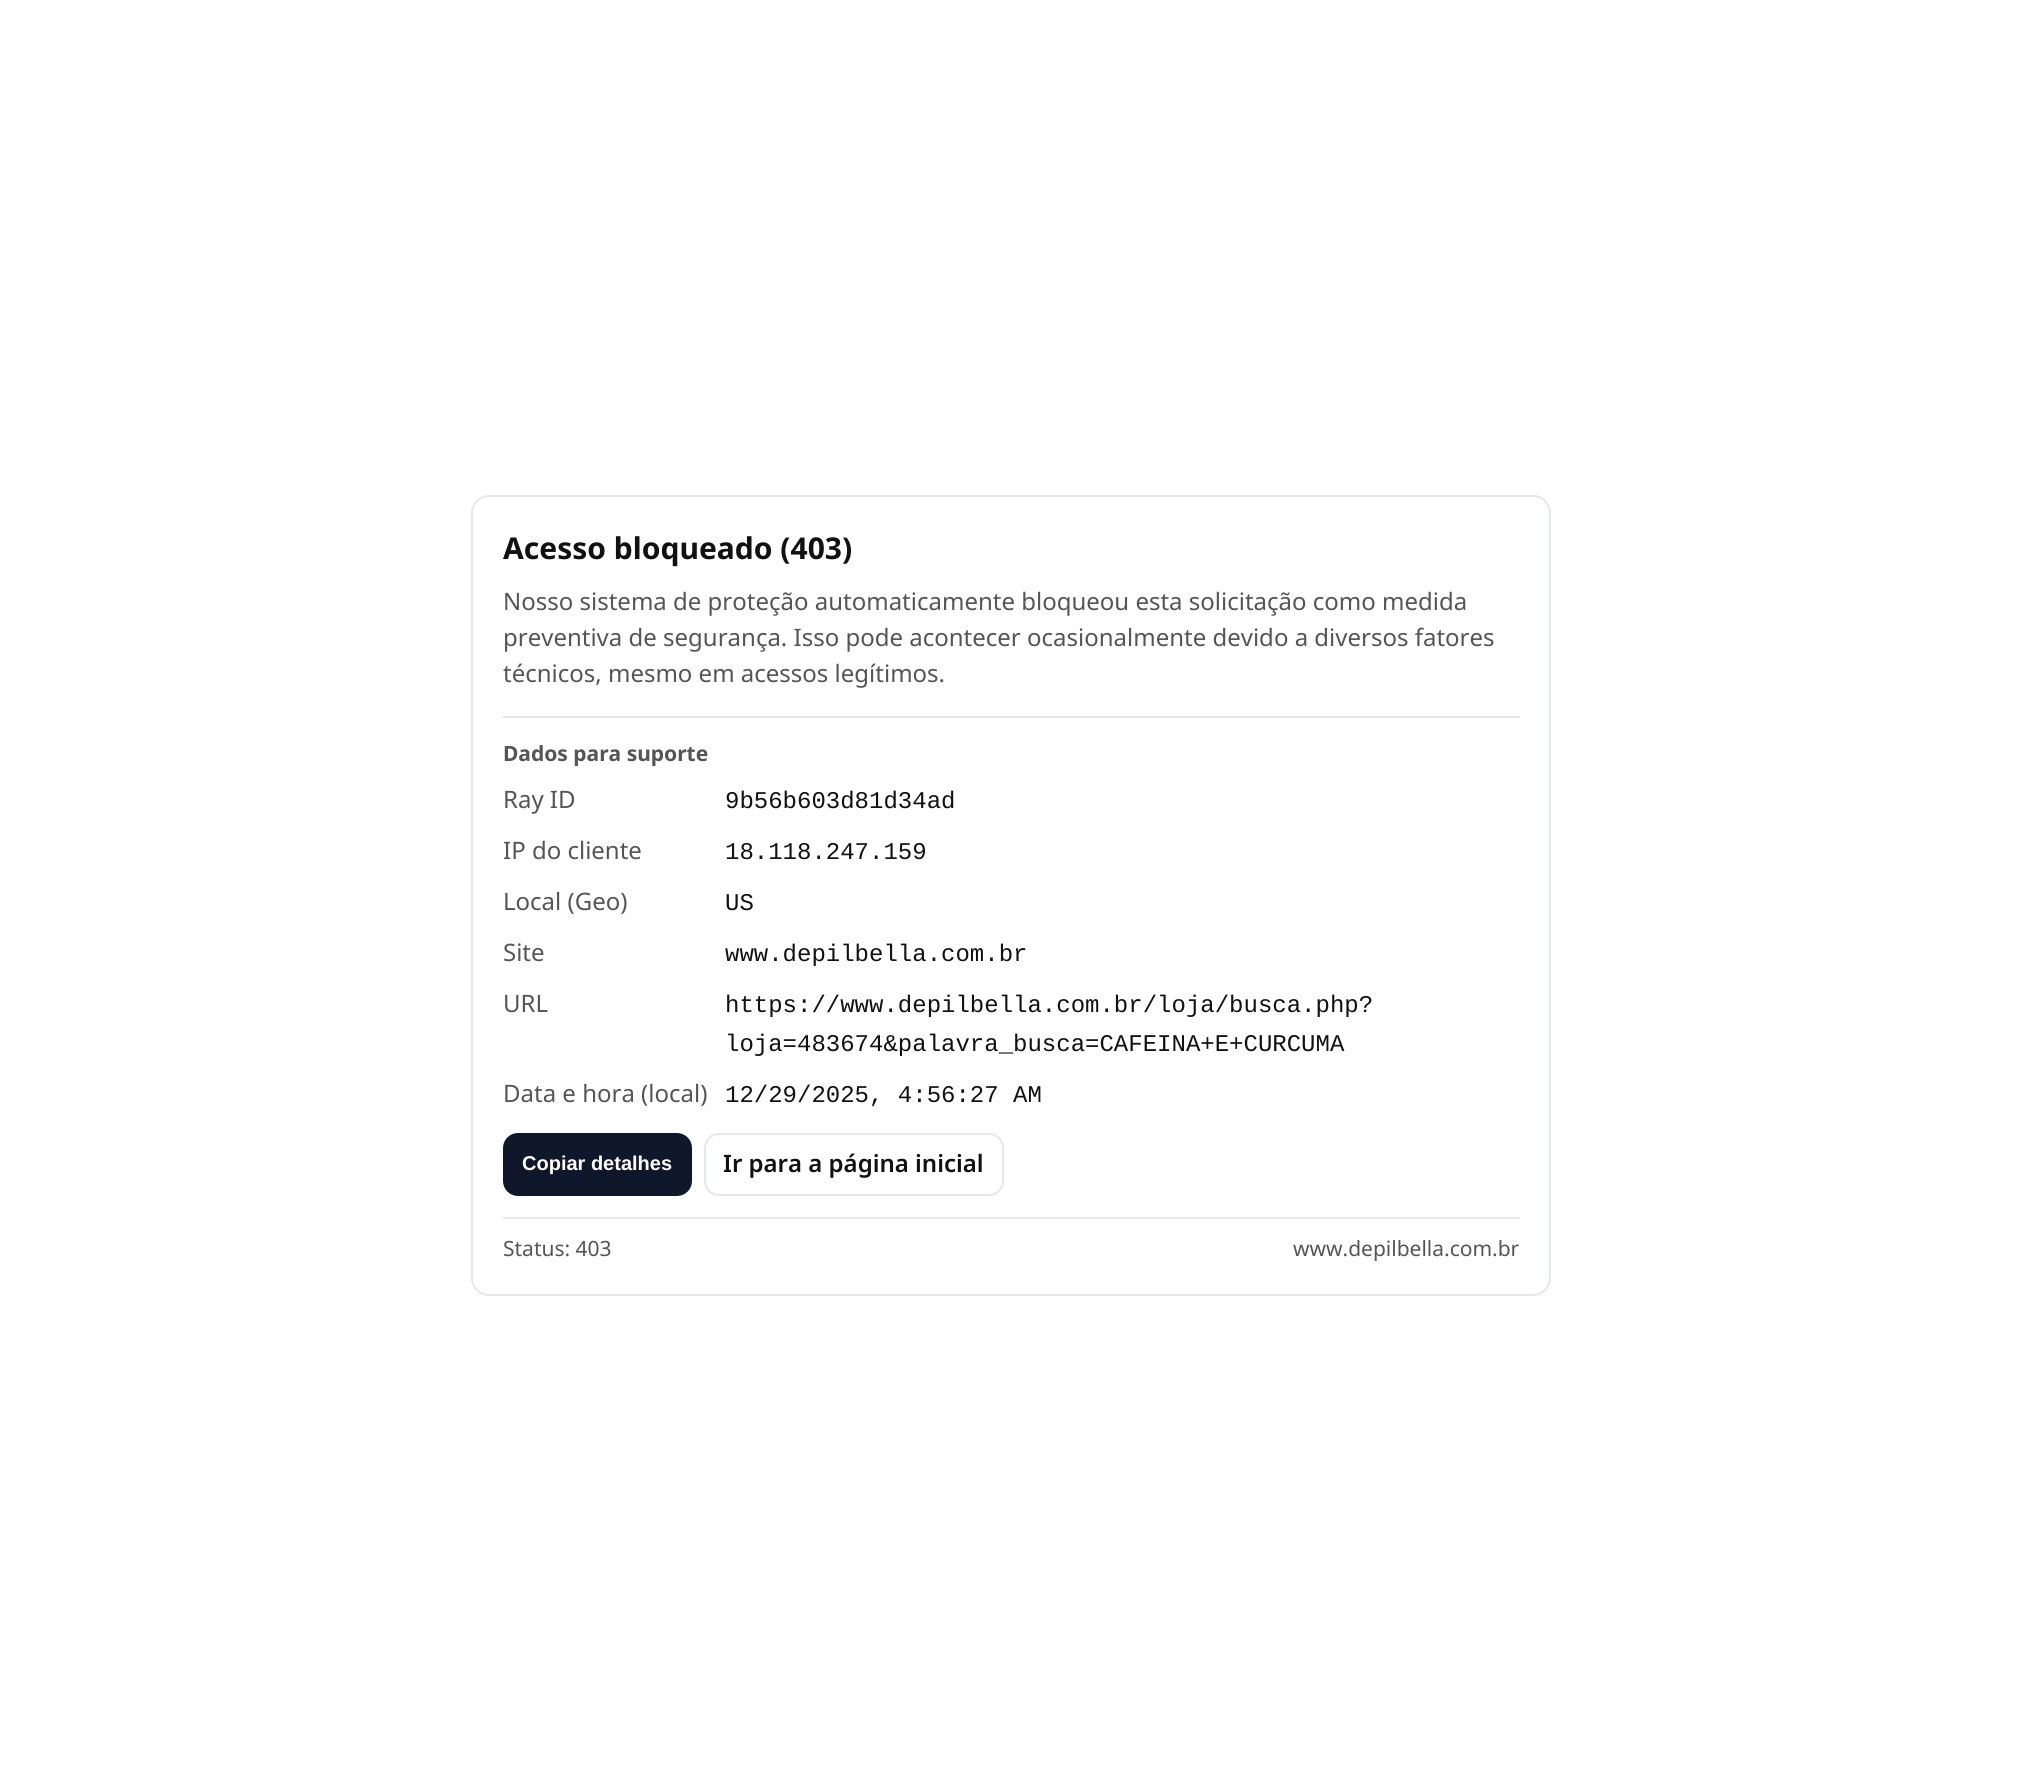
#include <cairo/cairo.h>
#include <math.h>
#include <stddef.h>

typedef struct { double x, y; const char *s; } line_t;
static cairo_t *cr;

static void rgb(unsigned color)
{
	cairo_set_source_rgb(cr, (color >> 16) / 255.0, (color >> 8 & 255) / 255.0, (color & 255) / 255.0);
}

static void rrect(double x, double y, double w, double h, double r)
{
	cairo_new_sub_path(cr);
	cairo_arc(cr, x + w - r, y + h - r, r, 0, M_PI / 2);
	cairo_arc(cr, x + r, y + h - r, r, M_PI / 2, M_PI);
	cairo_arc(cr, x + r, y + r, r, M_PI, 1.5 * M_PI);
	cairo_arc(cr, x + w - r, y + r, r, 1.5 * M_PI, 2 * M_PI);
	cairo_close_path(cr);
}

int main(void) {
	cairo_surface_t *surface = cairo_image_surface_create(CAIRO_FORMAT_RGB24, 2022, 1789);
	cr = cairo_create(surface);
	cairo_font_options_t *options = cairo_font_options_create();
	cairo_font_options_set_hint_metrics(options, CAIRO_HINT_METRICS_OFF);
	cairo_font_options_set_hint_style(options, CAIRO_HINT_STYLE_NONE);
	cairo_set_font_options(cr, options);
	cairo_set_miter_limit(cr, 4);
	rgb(0xffffff);
	cairo_paint(cr);
	rrect(472, 496, 1078, 799, 17);
	rgb(0xe5e7eb);
	cairo_stroke(cr);
	cairo_rectangle(cr, 503, 716, 1017, 2);
	cairo_fill(cr);
	rgb(0x0f172a);
	rrect(504, 1134, 187, 61, 14);
	cairo_fill_preserve(cr);
	cairo_stroke(cr);
	rrect(705, 1134, 298, 61, 14);
	rgb(0xe5e7eb);
	cairo_stroke(cr);
	cairo_rectangle(cr, 503, 1217, 1017, 2);
	cairo_fill(cr);
	cairo_select_font_face(cr, "Noto Sans", CAIRO_FONT_SLANT_NORMAL, CAIRO_FONT_WEIGHT_BOLD);
	cairo_set_font_size(cr, 30);
	rgb(0x111111);
	cairo_move_to(cr, 503, 559);
	cairo_show_text(cr, "Acesso bloqueado (403)");
	cairo_select_font_face(cr, "Noto Sans", CAIRO_FONT_SLANT_NORMAL, CAIRO_FONT_WEIGHT_NORMAL);
	cairo_set_font_size(cr, 24);
	rgb(0x555555);
	{
		static const line_t items[] = {
			{503, 610, "Nosso sistema de proteção automaticamente bloqueou esta solicitação como medida"},
			{503, 646, "preventiva de segurança. Isso pode acontecer ocasionalmente devido a diversos fatores"},
			{503, 682, "técnicos, mesmo em acessos legítimos."},
		};
		for (size_t i = 0; i < sizeof items / sizeof *items; i++) {
			cairo_move_to(cr, items[i].x, items[i].y);
			cairo_show_text(cr, items[i].s);
		}
	}
	cairo_select_font_face(cr, "Noto Sans", CAIRO_FONT_SLANT_NORMAL, CAIRO_FONT_WEIGHT_BOLD);
	cairo_set_font_size(cr, 21);
	cairo_move_to(cr, 503, 761);
	cairo_show_text(cr, "Dados para suporte");
	cairo_select_font_face(cr, "Noto Sans", CAIRO_FONT_SLANT_NORMAL, CAIRO_FONT_WEIGHT_NORMAL);
	cairo_set_font_size(cr, 24);
	cairo_move_to(cr, 503, 808);
	cairo_show_text(cr, "Ray ID");
	cairo_select_font_face(cr, "Liberation Mono", CAIRO_FONT_SLANT_NORMAL, CAIRO_FONT_WEIGHT_NORMAL);
	rgb(0x111111);
	cairo_move_to(cr, 725, 808);
	cairo_show_text(cr, "9b56b603d81d34ad");
	cairo_select_font_face(cr, "Noto Sans", CAIRO_FONT_SLANT_NORMAL, CAIRO_FONT_WEIGHT_NORMAL);
	rgb(0x555555);
	cairo_move_to(cr, 503, 859);
	cairo_show_text(cr, "IP do cliente");
	cairo_select_font_face(cr, "Liberation Mono", CAIRO_FONT_SLANT_NORMAL, CAIRO_FONT_WEIGHT_NORMAL);
	rgb(0x111111);
	cairo_move_to(cr, 725, 859);
	cairo_show_text(cr, "18.118.247.159");
	cairo_select_font_face(cr, "Noto Sans", CAIRO_FONT_SLANT_NORMAL, CAIRO_FONT_WEIGHT_NORMAL);
	rgb(0x555555);
	cairo_move_to(cr, 503, 910);
	cairo_show_text(cr, "Local (Geo)");
	cairo_select_font_face(cr, "Liberation Mono", CAIRO_FONT_SLANT_NORMAL, CAIRO_FONT_WEIGHT_NORMAL);
	rgb(0x111111);
	cairo_move_to(cr, 725, 910);
	cairo_show_text(cr, "US");
	cairo_select_font_face(cr, "Noto Sans", CAIRO_FONT_SLANT_NORMAL, CAIRO_FONT_WEIGHT_NORMAL);
	rgb(0x555555);
	cairo_move_to(cr, 503, 961);
	cairo_show_text(cr, "Site");
	cairo_select_font_face(cr, "Liberation Mono", CAIRO_FONT_SLANT_NORMAL, CAIRO_FONT_WEIGHT_NORMAL);
	rgb(0x111111);
	cairo_move_to(cr, 725, 961);
	cairo_show_text(cr, "www.depilbella.com.br");
	cairo_select_font_face(cr, "Noto Sans", CAIRO_FONT_SLANT_NORMAL, CAIRO_FONT_WEIGHT_NORMAL);
	rgb(0x555555);
	cairo_move_to(cr, 503, 1012);
	cairo_show_text(cr, "URL");
	cairo_select_font_face(cr, "Liberation Mono", CAIRO_FONT_SLANT_NORMAL, CAIRO_FONT_WEIGHT_NORMAL);
	rgb(0x111111);
	cairo_move_to(cr, 725, 1012);
	cairo_show_text(cr, "https://www.depilbella.com.br/loja/busca.php?");
	cairo_move_to(cr, 725, 1051);
	cairo_show_text(cr, "loja=483674&palavra_busca=CAFEINA+E+CURCUMA");
	cairo_select_font_face(cr, "Noto Sans", CAIRO_FONT_SLANT_NORMAL, CAIRO_FONT_WEIGHT_NORMAL);
	rgb(0x555555);
	cairo_move_to(cr, 503, 1102);
	cairo_show_text(cr, "Data e hora (local)");
	cairo_select_font_face(cr, "Liberation Mono", CAIRO_FONT_SLANT_NORMAL, CAIRO_FONT_WEIGHT_NORMAL);
	rgb(0x111111);
	cairo_move_to(cr, 725, 1102);
	cairo_show_text(cr, "12/29/2025, 4:56:27 AM");
	cairo_select_font_face(cr, "Liberation Sans", CAIRO_FONT_SLANT_NORMAL, CAIRO_FONT_WEIGHT_BOLD);
	cairo_set_font_size(cr, 20);
	rgb(0xffffff);
	cairo_move_to(cr, 522, 1170);
	cairo_show_text(cr, "Copiar detalhes");
	cairo_select_font_face(cr, "Noto Sans SemiBold", CAIRO_FONT_SLANT_NORMAL, CAIRO_FONT_WEIGHT_NORMAL);
	cairo_set_font_size(cr, 24);
	rgb(0x111111);
	cairo_move_to(cr, 723, 1172);
	cairo_show_text(cr, "Ir para a página inicial");
	cairo_select_font_face(cr, "Noto Sans", CAIRO_FONT_SLANT_NORMAL, CAIRO_FONT_WEIGHT_NORMAL);
	cairo_set_font_size(cr, 21);
	rgb(0x555555);
	cairo_move_to(cr, 503, 1256);
	cairo_show_text(cr, "Status: 403");
	cairo_move_to(cr, 1293, 1256);
	cairo_show_text(cr, "www.depilbella.com.br");
	cairo_surface_write_to_png(surface, "page.png");
	cairo_font_options_destroy(options);
	cairo_destroy(cr);
	cairo_surface_destroy(surface);
	return 0;
}
